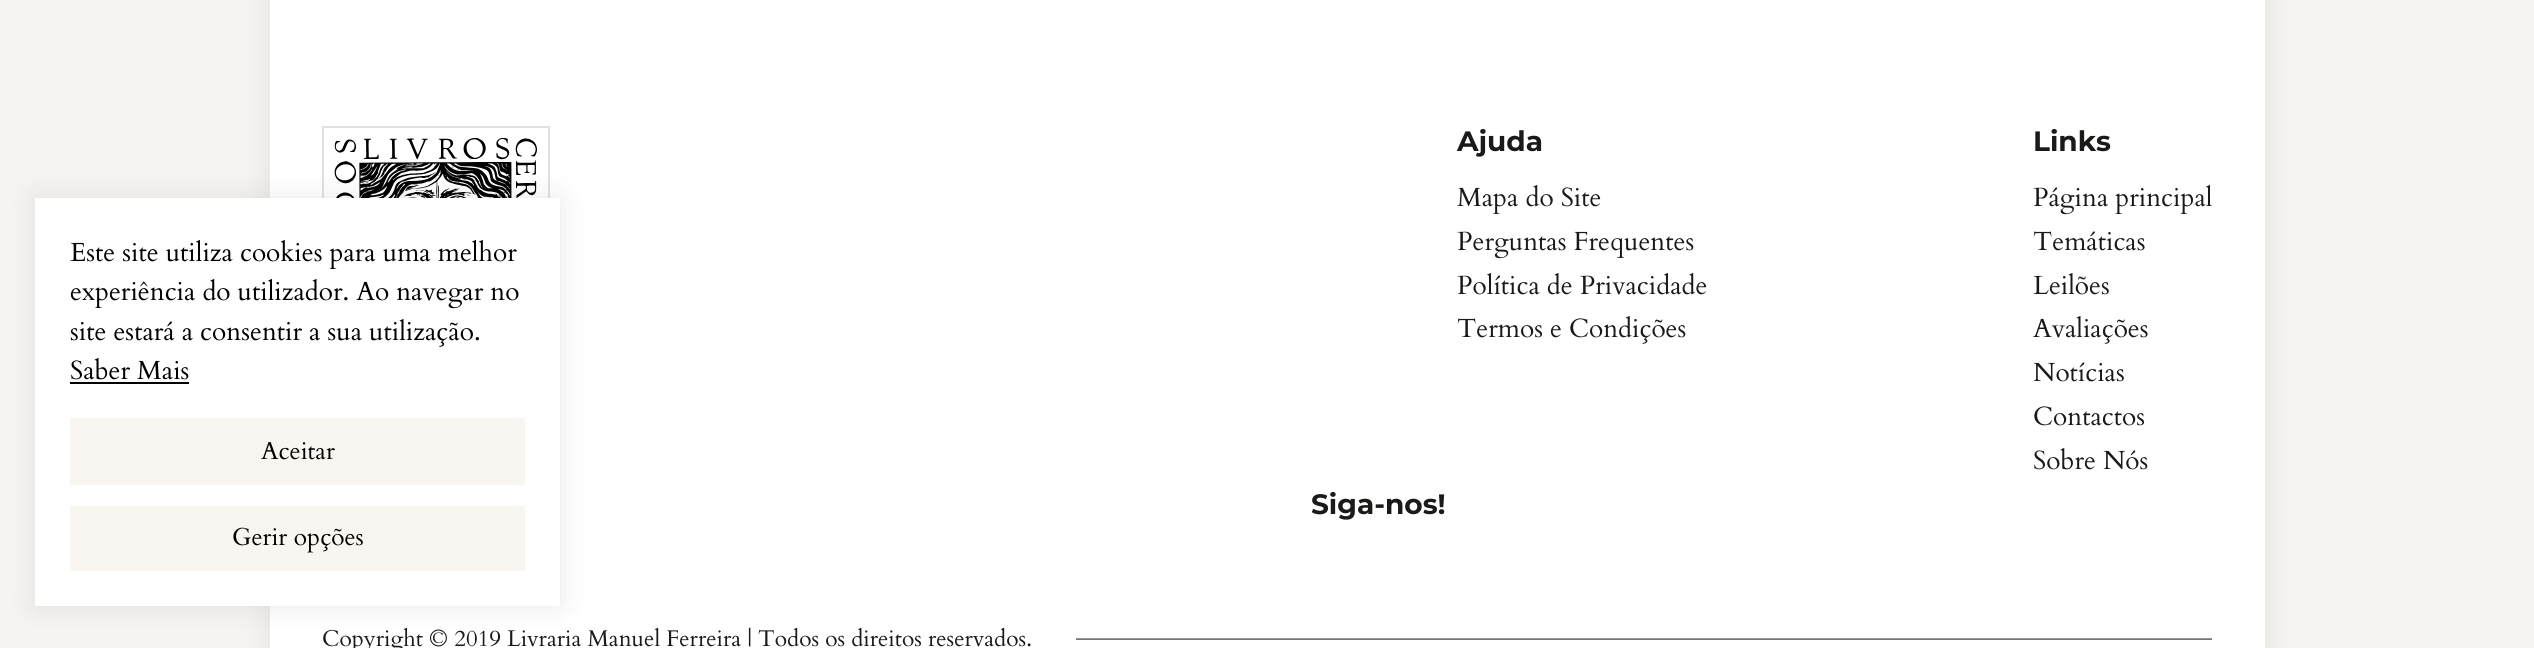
#include <cairo/cairo.h>
#include <math.h>
#include <stddef.h>

typedef struct { double x, y; const char *s; } line_t;
typedef struct { double x, y, w, h; unsigned color; } box_t;
static cairo_t *cr;

static void rgb(unsigned color)
{
	cairo_set_source_rgb(cr, (color >> 16) / 255.0, (color >> 8 & 255) / 255.0, (color & 255) / 255.0);
}

static void rrect(double x, double y, double w, double h, double r)
{
	cairo_new_sub_path(cr);
	cairo_arc(cr, x + w - r, y + h - r, r, 0, M_PI / 2);
	cairo_arc(cr, x + r, y + h - r, r, M_PI / 2, M_PI);
	cairo_arc(cr, x + r, y + r, r, M_PI, 1.5 * M_PI);
	cairo_arc(cr, x + w - r, y + r, r, 1.5 * M_PI, 2 * M_PI);
	cairo_close_path(cr);
}

static void soft_shadow(double x, double y, double w, double h, double r, double blur, double alpha)
{
	cairo_push_group_with_content(cr, CAIRO_CONTENT_ALPHA);
	cairo_set_operator(cr, CAIRO_OPERATOR_SOURCE);
	for (int i = 15; i >= -15 && fmin(w, h) + blur * i / 3 > 0; i -= 2) {
		double e = blur * i / 6;
		cairo_set_source_rgba(cr, 0, 0, 0, alpha * erfc((i - 1) / 8.5) / 2);
		rrect(x - e, y - e, w + 2 * e, h + 2 * e, fmax(0, fmin(r + e + blur * .6, fmin(w, h) / 2 + e)));
		cairo_fill(cr);
	}
	cairo_pattern_t *soft = cairo_pop_group(cr);
	cairo_mask(cr, soft);
	cairo_pattern_destroy(soft);
}

static void image(const char *path, double x, double y, double w, double h)
{
	cairo_surface_t *image = cairo_image_surface_create_from_png(path);
	cairo_save(cr);
	cairo_set_source_surface(cr, image, x, y);
	cairo_rectangle(cr, x, y, w, h);
	cairo_fill(cr);
	cairo_restore(cr);
	cairo_surface_destroy(image);
}

int main(void) {
	cairo_surface_t *surface = cairo_image_surface_create(CAIRO_FORMAT_RGB24, 2534, 648);
	cr = cairo_create(surface);
	cairo_font_options_t *options = cairo_font_options_create();
	cairo_font_options_set_hint_metrics(options, CAIRO_HINT_METRICS_OFF);
	cairo_font_options_set_hint_style(options, CAIRO_HINT_STYLE_NONE);
	cairo_set_font_options(cr, options);
	cairo_set_miter_limit(cr, 4);
	rgb(0xf6f4f0);
	cairo_paint(cr);
	rgb(0x1e1e1e);
	soft_shadow(270, -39, 1995, 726, 0, 13, 0.1);
	rgb(0xffffff);
	cairo_rectangle(cr, 270, 0, 1995, 648);
	cairo_fill(cr);
	cairo_rectangle(cr, 323, 127, 226, 224);
	rgb(0xe1e1e1);
	cairo_stroke(cr);
	image("img/1.png", 334, 138, 203, 60);
	rgb(0x1e1e1e);
	soft_shadow(35, 198, 525, 408, 0, 13, 0.1);
	{
		static const box_t items[] = {
			{35, 198, 525, 408, 0xffffff},
			{70, 382, 119, 2, 0x000000},
			{70, 418, 455, 67, 0xf9f5f1},
			{70, 506, 455, 65, 0xf9f5f1},
		};
		for (size_t i = 0; i < sizeof items / sizeof *items; i++) {
			rgb(items[i].color);
			cairo_rectangle(cr, items[i].x, items[i].y, items[i].w, items[i].h);
			cairo_fill(cr);
		}
	}
	image("img/2.png", 1076, 638, 1136, 2);
	cairo_select_font_face(cr, "Cardo", CAIRO_FONT_SLANT_NORMAL, CAIRO_FONT_WEIGHT_NORMAL);
	cairo_set_font_size(cr, 26.25);
	rgb(0x000000);
	{
		static const line_t items[] = {
			{70, 261, "Este site utiliza cookies para uma melhor"},
			{70, 300, "experiência do utilizador. Ao navegar no"},
			{70, 340, "site estará a consentir a sua utilização."},
			{70, 379, "Saber Mais"},
		};
		for (size_t i = 0; i < sizeof items / sizeof *items; i++) {
			cairo_move_to(cr, items[i].x, items[i].y);
			cairo_show_text(cr, items[i].s);
		}
	}
	cairo_set_font_size(cr, 24.5);
	cairo_move_to(cr, 261, 459);
	cairo_show_text(cr, "Aceitar");
	cairo_move_to(cr, 232, 545);
	cairo_show_text(cr, "Gerir opções");
	cairo_select_font_face(cr, "Montserrat", CAIRO_FONT_SLANT_NORMAL, CAIRO_FONT_WEIGHT_BOLD);
	cairo_set_font_size(cr, 28);
	rgb(0x1c1a18);
	cairo_move_to(cr, 1457, 151);
	cairo_show_text(cr, "Ajuda");
	cairo_select_font_face(cr, "Cardo", CAIRO_FONT_SLANT_NORMAL, CAIRO_FONT_WEIGHT_NORMAL);
	cairo_set_font_size(cr, 26.25);
	{
		static const line_t items[] = {
			{1457, 206, "Mapa do Site"},
			{1457, 250, "Perguntas Frequentes"},
			{1457, 294, "Política de Privacidade"},
			{1457, 337, "Termos e Condições"},
		};
		for (size_t i = 0; i < sizeof items / sizeof *items; i++) {
			cairo_move_to(cr, items[i].x, items[i].y);
			cairo_show_text(cr, items[i].s);
		}
	}
	cairo_select_font_face(cr, "Montserrat", CAIRO_FONT_SLANT_NORMAL, CAIRO_FONT_WEIGHT_BOLD);
	cairo_set_font_size(cr, 28);
	cairo_move_to(cr, 2033, 151);
	cairo_show_text(cr, "Links");
	cairo_select_font_face(cr, "Cardo", CAIRO_FONT_SLANT_NORMAL, CAIRO_FONT_WEIGHT_NORMAL);
	cairo_set_font_size(cr, 26.25);
	{
		static const line_t items[] = {
			{2033, 206, "Página principal"},
			{2033, 250, "Temáticas"},
			{2033, 294, "Leilões"},
			{2033, 337, "Avaliações"},
			{2033, 381, "Notícias"},
			{2033, 425, "Contactos"},
			{2033, 469, "Sobre Nós"},
		};
		for (size_t i = 0; i < sizeof items / sizeof *items; i++) {
			cairo_move_to(cr, items[i].x, items[i].y);
			cairo_show_text(cr, items[i].s);
		}
	}
	cairo_select_font_face(cr, "Montserrat", CAIRO_FONT_SLANT_NORMAL, CAIRO_FONT_WEIGHT_BOLD);
	cairo_set_font_size(cr, 28);
	cairo_move_to(cr, 1311, 514);
	cairo_show_text(cr, "Siga-nos!");
	cairo_select_font_face(cr, "Cardo", CAIRO_FONT_SLANT_NORMAL, CAIRO_FONT_WEIGHT_NORMAL);
	cairo_set_font_size(cr, 22.75);
	cairo_move_to(cr, 322, 646);
	cairo_show_text(cr, "Copyright © 2019 Livraria Manuel Ferreira | Todos os direitos reservados.");
	cairo_surface_write_to_png(surface, "page.png");
	cairo_font_options_destroy(options);
	cairo_destroy(cr);
	cairo_surface_destroy(surface);
	return 0;
}
